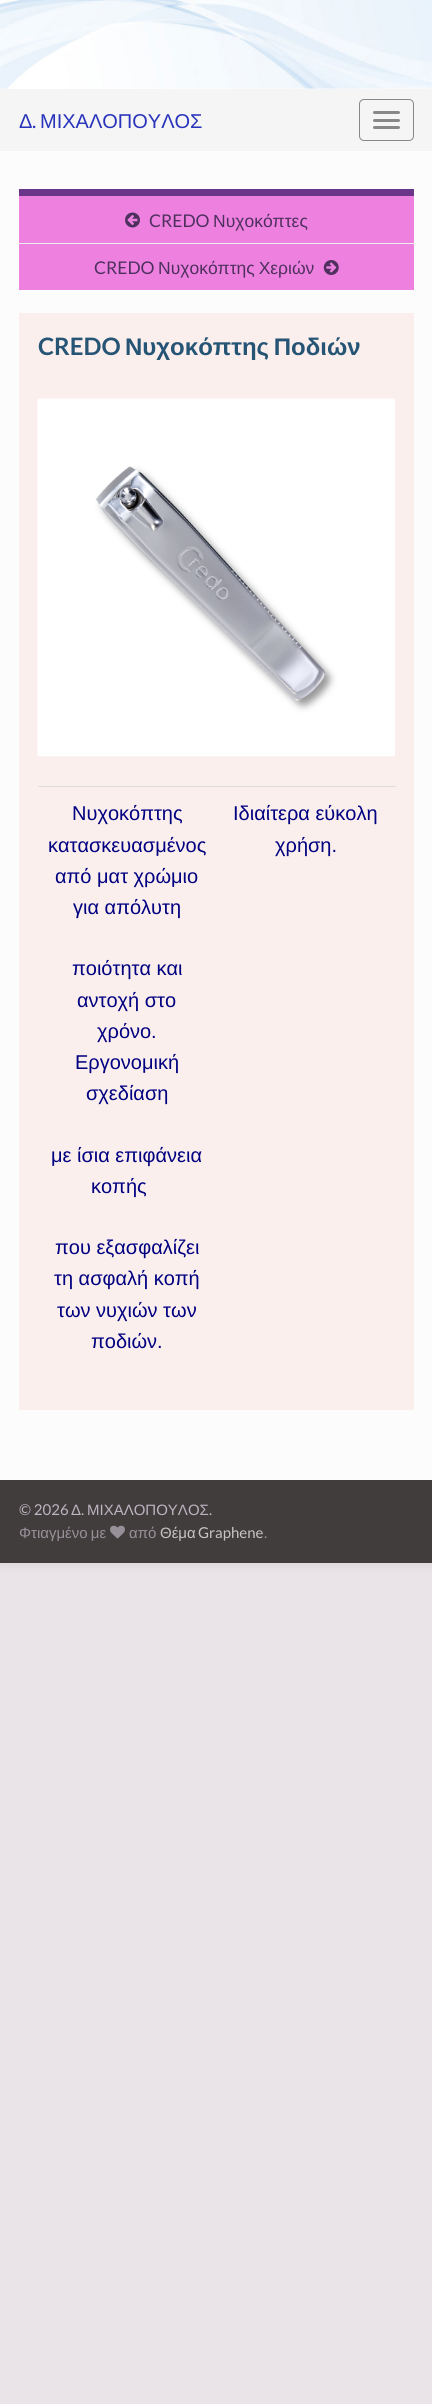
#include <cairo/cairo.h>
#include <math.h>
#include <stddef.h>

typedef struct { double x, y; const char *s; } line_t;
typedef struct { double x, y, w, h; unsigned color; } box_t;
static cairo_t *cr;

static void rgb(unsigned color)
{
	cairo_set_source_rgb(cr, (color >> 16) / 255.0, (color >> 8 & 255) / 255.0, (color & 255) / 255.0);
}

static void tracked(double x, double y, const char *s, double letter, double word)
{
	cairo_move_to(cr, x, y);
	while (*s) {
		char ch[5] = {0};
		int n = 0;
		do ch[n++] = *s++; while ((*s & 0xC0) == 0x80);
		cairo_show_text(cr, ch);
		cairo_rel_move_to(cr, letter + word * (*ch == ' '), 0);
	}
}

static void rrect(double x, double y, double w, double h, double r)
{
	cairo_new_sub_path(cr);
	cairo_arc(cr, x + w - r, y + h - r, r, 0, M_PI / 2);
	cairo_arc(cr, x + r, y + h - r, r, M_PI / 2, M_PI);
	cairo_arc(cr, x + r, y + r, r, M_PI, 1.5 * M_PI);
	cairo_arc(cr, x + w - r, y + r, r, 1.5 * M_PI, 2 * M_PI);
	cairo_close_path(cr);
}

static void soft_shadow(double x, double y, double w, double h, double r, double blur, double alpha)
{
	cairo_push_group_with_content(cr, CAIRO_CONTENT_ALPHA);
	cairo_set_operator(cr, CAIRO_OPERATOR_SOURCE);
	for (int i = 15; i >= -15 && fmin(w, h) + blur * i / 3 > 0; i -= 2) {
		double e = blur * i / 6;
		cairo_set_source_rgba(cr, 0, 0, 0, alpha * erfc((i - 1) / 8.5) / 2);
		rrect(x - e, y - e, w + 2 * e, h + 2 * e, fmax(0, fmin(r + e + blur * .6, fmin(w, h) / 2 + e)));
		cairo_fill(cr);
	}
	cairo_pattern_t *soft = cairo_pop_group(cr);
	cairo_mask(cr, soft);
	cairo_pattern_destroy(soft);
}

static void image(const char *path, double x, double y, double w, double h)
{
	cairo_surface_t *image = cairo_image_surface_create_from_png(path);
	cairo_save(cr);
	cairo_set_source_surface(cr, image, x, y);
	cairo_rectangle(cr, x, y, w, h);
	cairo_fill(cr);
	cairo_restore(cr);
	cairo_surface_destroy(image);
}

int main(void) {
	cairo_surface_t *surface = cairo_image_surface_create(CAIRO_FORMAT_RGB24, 432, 2404);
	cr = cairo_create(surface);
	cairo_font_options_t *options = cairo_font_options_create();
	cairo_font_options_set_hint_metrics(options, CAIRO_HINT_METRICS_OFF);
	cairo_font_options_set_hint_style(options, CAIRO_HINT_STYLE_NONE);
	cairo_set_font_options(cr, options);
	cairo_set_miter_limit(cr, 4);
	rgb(0xeae3e7);
	cairo_paint(cr);
	rgb(0x000000);
	soft_shadow(0, 0, 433, 1563, 0, 6, 0.1);
	rgb(0xfdfcfc);
	cairo_rectangle(cr, 0, 88, 432, 1);
	cairo_fill(cr);
	image("img/1.png", 0, 0, 432, 89);
	rgb(0xf5f5f5);
	cairo_rectangle(cr, 0, 89, 432, 62);
	cairo_fill(cr);
	rrect(359.5, 99.5, 54, 41, 4.5);
	rgb(0x888888);
	cairo_set_line_width(cr, 1);
	cairo_stroke(cr);
	rrect(373, 111, 27, 3, 1.5);
	cairo_fill(cr);
	rrect(373, 119, 27, 3, 1.5);
	cairo_fill(cr);
	rrect(373, 126, 27, 3, 1.5);
	cairo_fill(cr);
	{
		static const box_t items[] = {
			{0, 151, 432, 1329, 0xfdfcfc},
			{19, 196, 395, 94, 0xee81e0},
			{19, 189, 395, 7, 0x6b3589},
		};
		for (size_t i = 0; i < sizeof items / sizeof *items; i++) {
			rgb(items[i].color);
			cairo_rectangle(cr, items[i].x, items[i].y, items[i].w, items[i].h);
			cairo_fill(cr);
		}
	}
	image("img/2.png", 125, 212, 15, 16);
	rgb(0xeeeeee);
	cairo_rectangle(cr, 19, 243, 395, 1);
	cairo_fill(cr);
	image("img/3.png", 323, 260, 16, 15);
	rgb(0xfbefee);
	cairo_rectangle(cr, 19, 313, 395, 1097);
	cairo_fill(cr);
	image("img/4.png", 37, 398, 358, 359);
	rgb(0xdddddd);
	cairo_rectangle(cr, 38, 786, 358, 1);
	cairo_fill(cr);
	rgb(0x423d3d);
	cairo_rectangle(cr, 0, 1480, 432, 83);
	cairo_fill(cr);
	image("img/5.png", 110, 1525, 15, 14);
	cairo_select_font_face(cr, "Liberation Sans", CAIRO_FONT_SLANT_NORMAL, CAIRO_FONT_WEIGHT_NORMAL);
	cairo_set_font_size(cr, 20);
	rgb(0x2733ba);
	cairo_move_to(cr, 19, 128);
	cairo_show_text(cr, "Δ");
	cairo_select_font_face(cr, "Lato", CAIRO_FONT_SLANT_NORMAL, CAIRO_FONT_WEIGHT_NORMAL);
	cairo_move_to(cr, 32, 128);
	cairo_show_text(cr, ".");
	cairo_select_font_face(cr, "Liberation Sans", CAIRO_FONT_SLANT_NORMAL, CAIRO_FONT_WEIGHT_NORMAL);
	cairo_move_to(cr, 40, 128);
	cairo_show_text(cr, "ΜΙΧΑΛΟΠΟΥΛΟΣ");
	cairo_select_font_face(cr, "Lato", CAIRO_FONT_SLANT_NORMAL, CAIRO_FONT_WEIGHT_NORMAL);
	cairo_set_font_size(cr, 17.5);
	rgb(0x4e305e);
	cairo_move_to(cr, 149, 227);
	cairo_show_text(cr, "CREDO");
	cairo_select_font_face(cr, "Liberation Sans", CAIRO_FONT_SLANT_NORMAL, CAIRO_FONT_WEIGHT_NORMAL);
	cairo_move_to(cr, 213, 227);
	cairo_show_text(cr, "Νυχοκόπτες");
	cairo_select_font_face(cr, "Lato", CAIRO_FONT_SLANT_NORMAL, CAIRO_FONT_WEIGHT_NORMAL);
	cairo_move_to(cr, 94, 274);
	cairo_show_text(cr, "CREDO");
	cairo_select_font_face(cr, "Liberation Sans", CAIRO_FONT_SLANT_NORMAL, CAIRO_FONT_WEIGHT_NORMAL);
	tracked(158, 274, "Νυχοκόπτης Χεριών", 0, -1);
	cairo_select_font_face(cr, "Lato", CAIRO_FONT_SLANT_NORMAL, CAIRO_FONT_WEIGHT_BOLD);
	cairo_set_font_size(cr, 24);
	rgb(0x255474);
	cairo_move_to(cr, 38, 355);
	cairo_show_text(cr, "CREDO");
	cairo_select_font_face(cr, "Liberation Sans", CAIRO_FONT_SLANT_NORMAL, CAIRO_FONT_WEIGHT_BOLD);
	tracked(125, 355, "Νυχοκόπτης Ποδιών", 0, -2);
	cairo_select_font_face(cr, "Liberation Sans", CAIRO_FONT_SLANT_NORMAL, CAIRO_FONT_WEIGHT_NORMAL);
	cairo_set_font_size(cr, 20);
	rgb(0x000080);
	{
		static const line_t items[] = {
			{72, 820, "Νυχοκόπτης"},
			{48, 852, "κατασκευασμένος"},
			{55, 883, "από ματ χρώμιο"},
			{73, 914, "για απόλυτη"},
			{72, 975, "ποιότητα και"},
			{77, 1007, "αντοχή στο"},
			{97, 1038, "χρόνο."},
			{75, 1069, "Εργονομική"},
			{86, 1100, "σχεδίαση"},
			{51, 1162, "με ίσια επιφάνεια"},
			{91, 1193, "κοπής"},
			{55, 1254, "που εξασφαλίζει"},
			{54, 1285, "τη ασφαλή κοπή"},
			{57, 1317, "των νυχιών των"},
			{91, 1348, "ποδιών."},
			{233, 820, "Ιδιαίτερα εύκολη"},
			{275, 852, "χρήση."},
		};
		for (size_t i = 0; i < sizeof items / sizeof *items; i++) {
			cairo_move_to(cr, items[i].x, items[i].y);
			cairo_show_text(cr, items[i].s);
		}
	}
	cairo_select_font_face(cr, "Lato", CAIRO_FONT_SLANT_NORMAL, CAIRO_FONT_WEIGHT_NORMAL);
	cairo_set_font_size(cr, 15);
	rgb(0xbcb4c1);
	cairo_move_to(cr, 19, 1515);
	cairo_show_text(cr, "© 2026");
	cairo_select_font_face(cr, "Liberation Sans", CAIRO_FONT_SLANT_NORMAL, CAIRO_FONT_WEIGHT_NORMAL);
	cairo_move_to(cr, 71, 1515);
	cairo_show_text(cr, "Δ");
	cairo_select_font_face(cr, "Lato", CAIRO_FONT_SLANT_NORMAL, CAIRO_FONT_WEIGHT_NORMAL);
	cairo_move_to(cr, 81, 1515);
	cairo_show_text(cr, ".");
	cairo_select_font_face(cr, "Liberation Sans", CAIRO_FONT_SLANT_NORMAL, CAIRO_FONT_WEIGHT_NORMAL);
	cairo_move_to(cr, 87, 1515);
	cairo_show_text(cr, "ΜΙΧΑΛΟΠΟΥΛΟΣ");
	cairo_select_font_face(cr, "Lato", CAIRO_FONT_SLANT_NORMAL, CAIRO_FONT_WEIGHT_NORMAL);
	cairo_move_to(cr, 209, 1515);
	cairo_show_text(cr, ".");
	cairo_select_font_face(cr, "Liberation Sans", CAIRO_FONT_SLANT_NORMAL, CAIRO_FONT_WEIGHT_NORMAL);
	rgb(0x979099);
	tracked(19, 1538, "Φτιαγμένο με", 0, -1);
	cairo_move_to(cr, 129, 1538);
	cairo_show_text(cr, "από");
	rgb(0xc6c5c5);
	cairo_move_to(cr, 160, 1538);
	cairo_show_text(cr, "Θέμα");
	cairo_select_font_face(cr, "Lato", CAIRO_FONT_SLANT_NORMAL, CAIRO_FONT_WEIGHT_NORMAL);
	cairo_move_to(cr, 198, 1538);
	cairo_show_text(cr, "Graphene");
	rgb(0x979099);
	cairo_move_to(cr, 264, 1538);
	cairo_show_text(cr, ".");
	cairo_surface_write_to_png(surface, "page.png");
	cairo_font_options_destroy(options);
	cairo_destroy(cr);
	cairo_surface_destroy(surface);
	return 0;
}
